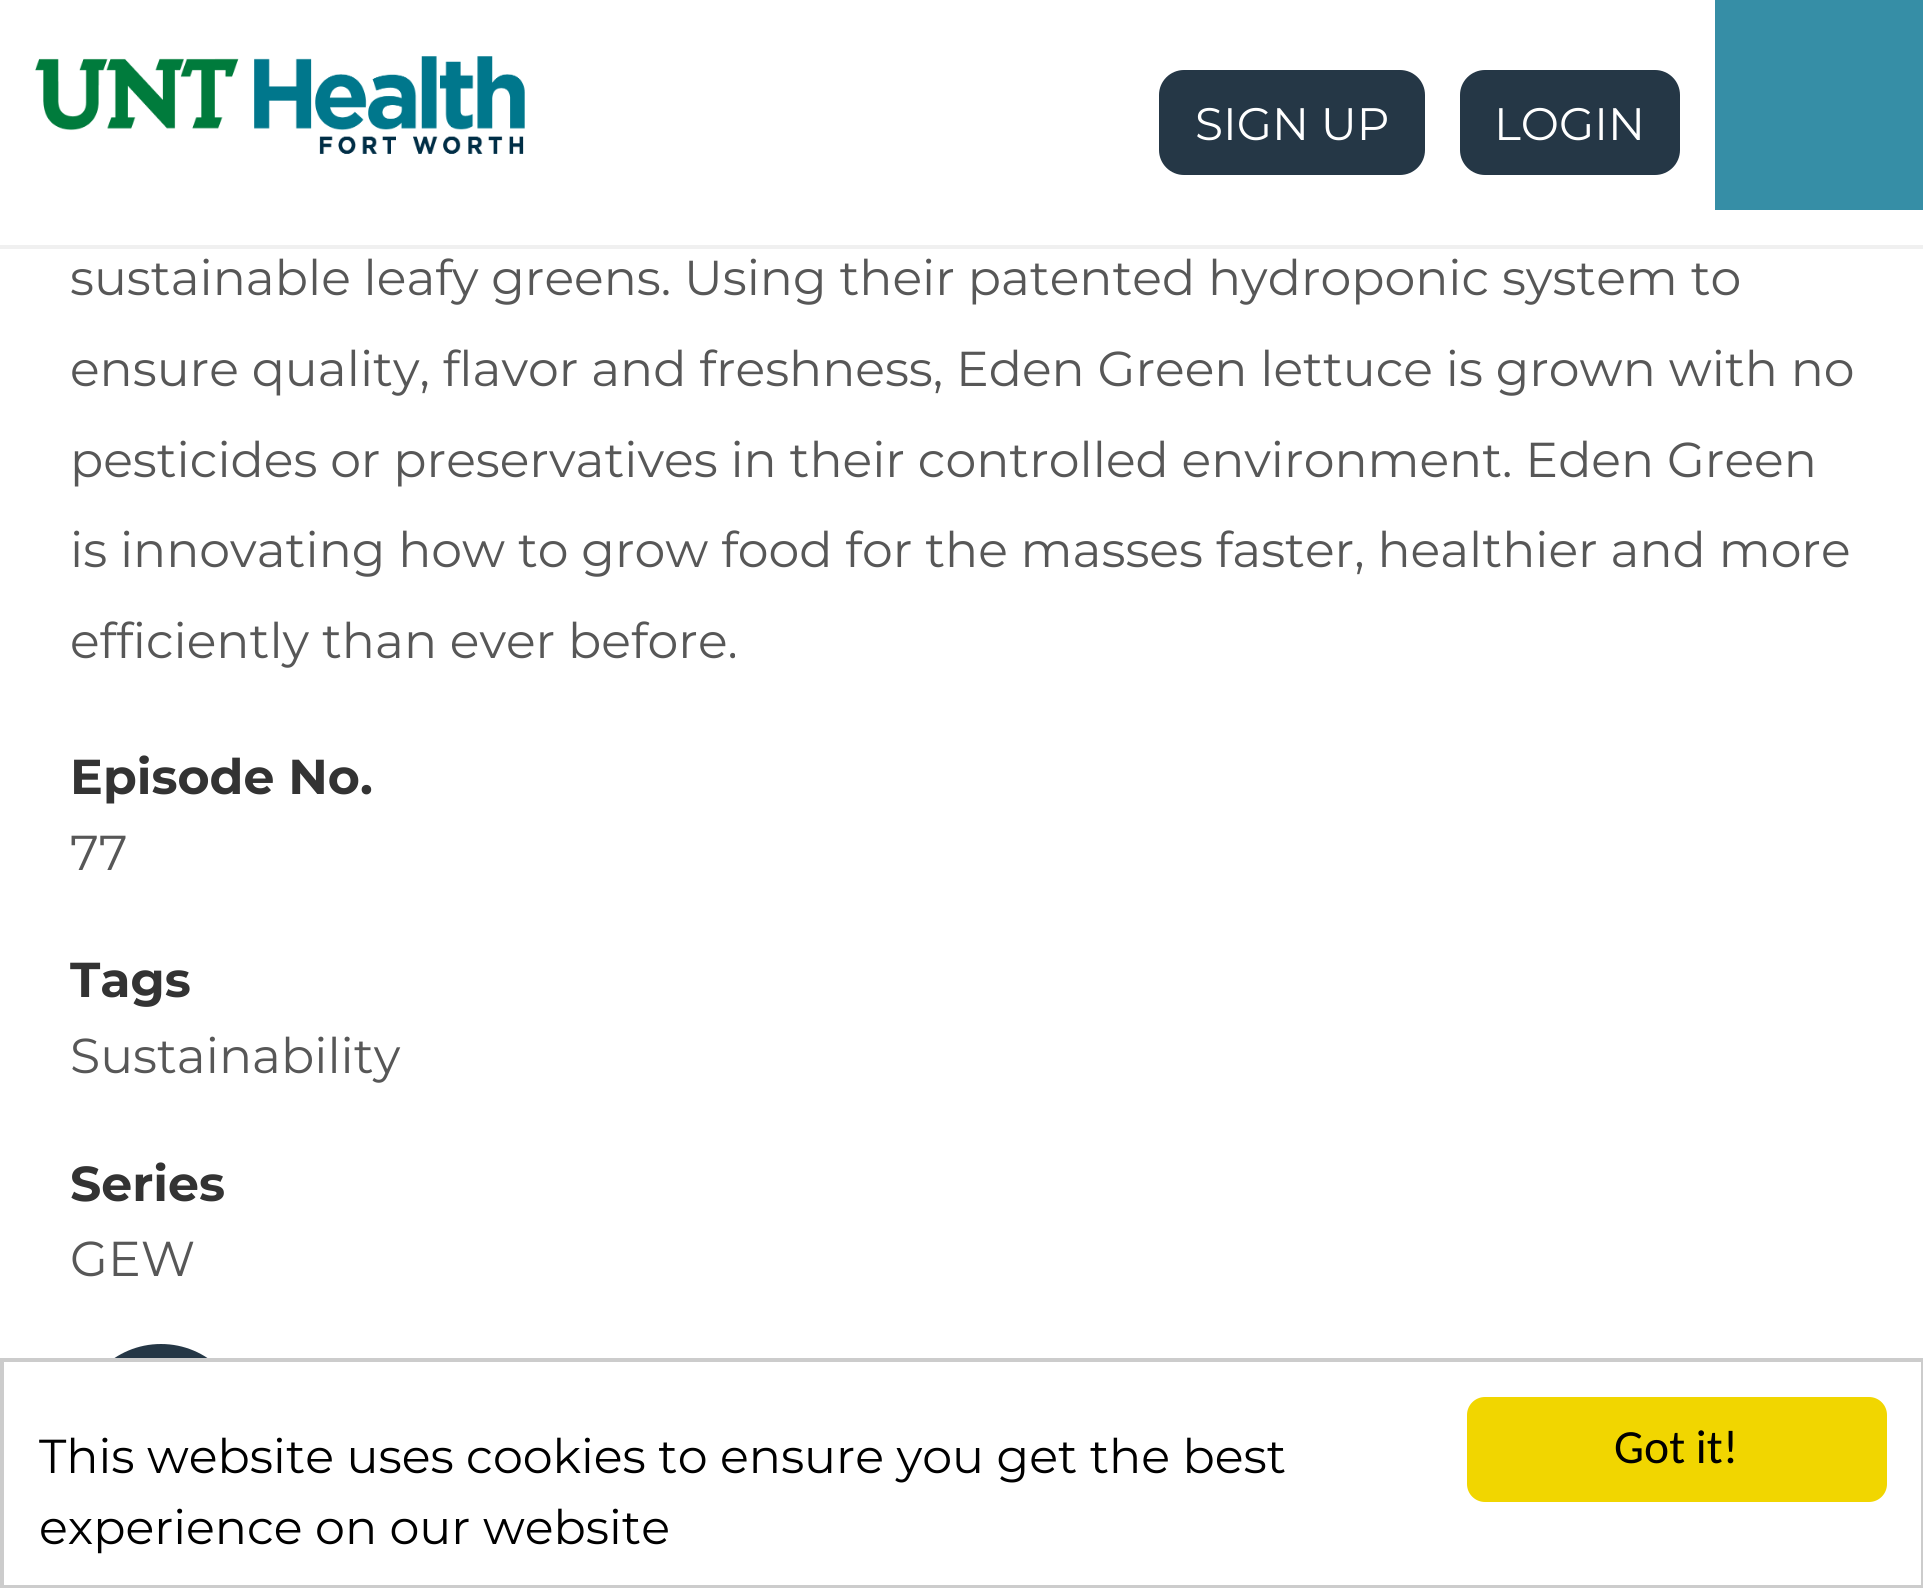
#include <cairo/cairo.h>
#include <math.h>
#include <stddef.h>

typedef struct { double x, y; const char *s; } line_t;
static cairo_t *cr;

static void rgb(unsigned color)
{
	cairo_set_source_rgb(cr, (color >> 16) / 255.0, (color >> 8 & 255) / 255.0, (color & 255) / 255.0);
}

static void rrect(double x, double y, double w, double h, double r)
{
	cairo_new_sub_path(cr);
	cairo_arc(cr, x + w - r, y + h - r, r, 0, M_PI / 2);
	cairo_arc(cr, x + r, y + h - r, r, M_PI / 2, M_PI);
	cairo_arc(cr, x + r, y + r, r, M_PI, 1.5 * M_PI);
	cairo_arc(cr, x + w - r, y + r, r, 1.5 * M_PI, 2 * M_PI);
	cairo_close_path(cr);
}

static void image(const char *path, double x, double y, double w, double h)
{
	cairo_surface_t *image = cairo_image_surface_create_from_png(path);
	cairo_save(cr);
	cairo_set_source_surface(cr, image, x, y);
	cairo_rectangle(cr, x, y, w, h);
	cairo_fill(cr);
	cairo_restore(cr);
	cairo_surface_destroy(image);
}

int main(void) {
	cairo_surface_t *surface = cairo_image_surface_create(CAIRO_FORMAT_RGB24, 1923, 1588);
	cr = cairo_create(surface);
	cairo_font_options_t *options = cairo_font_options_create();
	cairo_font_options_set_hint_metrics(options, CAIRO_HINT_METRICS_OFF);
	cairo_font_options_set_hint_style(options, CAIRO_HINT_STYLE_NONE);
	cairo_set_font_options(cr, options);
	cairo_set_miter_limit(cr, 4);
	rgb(0xffffff);
	cairo_paint(cr);
	image("img/1.png", 35, 56, 490, 98);
	rgb(0x253746);
	rrect(1159, 70, 266, 105, 25);
	cairo_fill(cr);
	rrect(1460, 70, 220, 105, 25);
	cairo_fill(cr);
	rgb(0x368ea6);
	cairo_rectangle(cr, 1715, 0, 208, 210);
	cairo_fill(cr);
	rgb(0xf0f0f0);
	cairo_rectangle(cr, 0, 245, 1923, 4);
	cairo_fill(cr);
	rgb(0x253746);
	cairo_arc(cr, 161, 1428, 87.5, 0, 2 * M_PI);
	cairo_fill_preserve(cr);
	rgb(0xffffff);
	cairo_set_line_width(cr, 7);
	cairo_stroke(cr);
	cairo_rectangle(cr, 70, 1362, 182, 157);
	cairo_fill(cr);
	cairo_rectangle(cr, 2, 1360, 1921, 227);
	rgb(0xcccccc);
	cairo_set_line_width(cr, 4);
	cairo_stroke(cr);
	rgb(0xf1d600);
	rrect(1467, 1397, 420, 105, 18);
	cairo_fill(cr);
	cairo_select_font_face(cr, "Montserrat", CAIRO_FONT_SLANT_NORMAL, CAIRO_FONT_WEIGHT_NORMAL);
	cairo_set_font_size(cr, 45.5);
	rgb(0xffffff);
	cairo_move_to(cr, 1195, 140);
	cairo_show_text(cr, "SIGN UP");
	cairo_move_to(cr, 1494, 140);
	cairo_show_text(cr, "LOGIN");
	cairo_set_font_size(cr, 49);
	rgb(0x575757);
	{
		static const line_t items[] = {
			{70, 295, "sustainable leafy greens. Using their patented hydroponic system to"},
			{70, 386, "ensure quality, flavor and freshness, Eden Green lettuce is grown with no"},
			{70, 477, "pesticides or preservatives in their controlled environment. Eden Green"},
			{70, 567, "is innovating how to grow food for the masses faster, healthier and more"},
			{70, 658, "efficiently than ever before."},
		};
		for (size_t i = 0; i < sizeof items / sizeof *items; i++) {
			cairo_move_to(cr, items[i].x, items[i].y);
			cairo_show_text(cr, items[i].s);
		}
	}
	cairo_select_font_face(cr, "Montserrat", CAIRO_FONT_SLANT_NORMAL, CAIRO_FONT_WEIGHT_BOLD);
	rgb(0x333333);
	cairo_move_to(cr, 70, 794);
	cairo_show_text(cr, "Episode No.");
	cairo_select_font_face(cr, "Montserrat", CAIRO_FONT_SLANT_NORMAL, CAIRO_FONT_WEIGHT_NORMAL);
	rgb(0x575757);
	cairo_move_to(cr, 70, 870);
	cairo_show_text(cr, "77");
	cairo_select_font_face(cr, "Montserrat", CAIRO_FONT_SLANT_NORMAL, CAIRO_FONT_WEIGHT_BOLD);
	rgb(0x333333);
	cairo_move_to(cr, 70, 997);
	cairo_show_text(cr, "Tags");
	cairo_select_font_face(cr, "Montserrat", CAIRO_FONT_SLANT_NORMAL, CAIRO_FONT_WEIGHT_NORMAL);
	rgb(0x575757);
	cairo_move_to(cr, 70, 1073);
	cairo_show_text(cr, "Sustainability");
	cairo_select_font_face(cr, "Montserrat", CAIRO_FONT_SLANT_NORMAL, CAIRO_FONT_WEIGHT_BOLD);
	rgb(0x333333);
	cairo_move_to(cr, 70, 1201);
	cairo_show_text(cr, "Series");
	cairo_select_font_face(cr, "Montserrat", CAIRO_FONT_SLANT_NORMAL, CAIRO_FONT_WEIGHT_NORMAL);
	rgb(0x575757);
	cairo_move_to(cr, 70, 1276);
	cairo_show_text(cr, "GEW");
	cairo_set_font_size(cr, 47.6);
	rgb(0x000000);
	cairo_move_to(cr, 39, 1473);
	cairo_show_text(cr, "This website uses cookies to ensure you get the best");
	cairo_move_to(cr, 39, 1544);
	cairo_show_text(cr, "experience on our website");
	cairo_select_font_face(cr, "Carlito", CAIRO_FONT_SLANT_NORMAL, CAIRO_FONT_WEIGHT_NORMAL);
	cairo_move_to(cr, 1614, 1463);
	cairo_show_text(cr, "Got it!");
	cairo_surface_write_to_png(surface, "page.png");
	cairo_font_options_destroy(options);
	cairo_destroy(cr);
	cairo_surface_destroy(surface);
	return 0;
}
